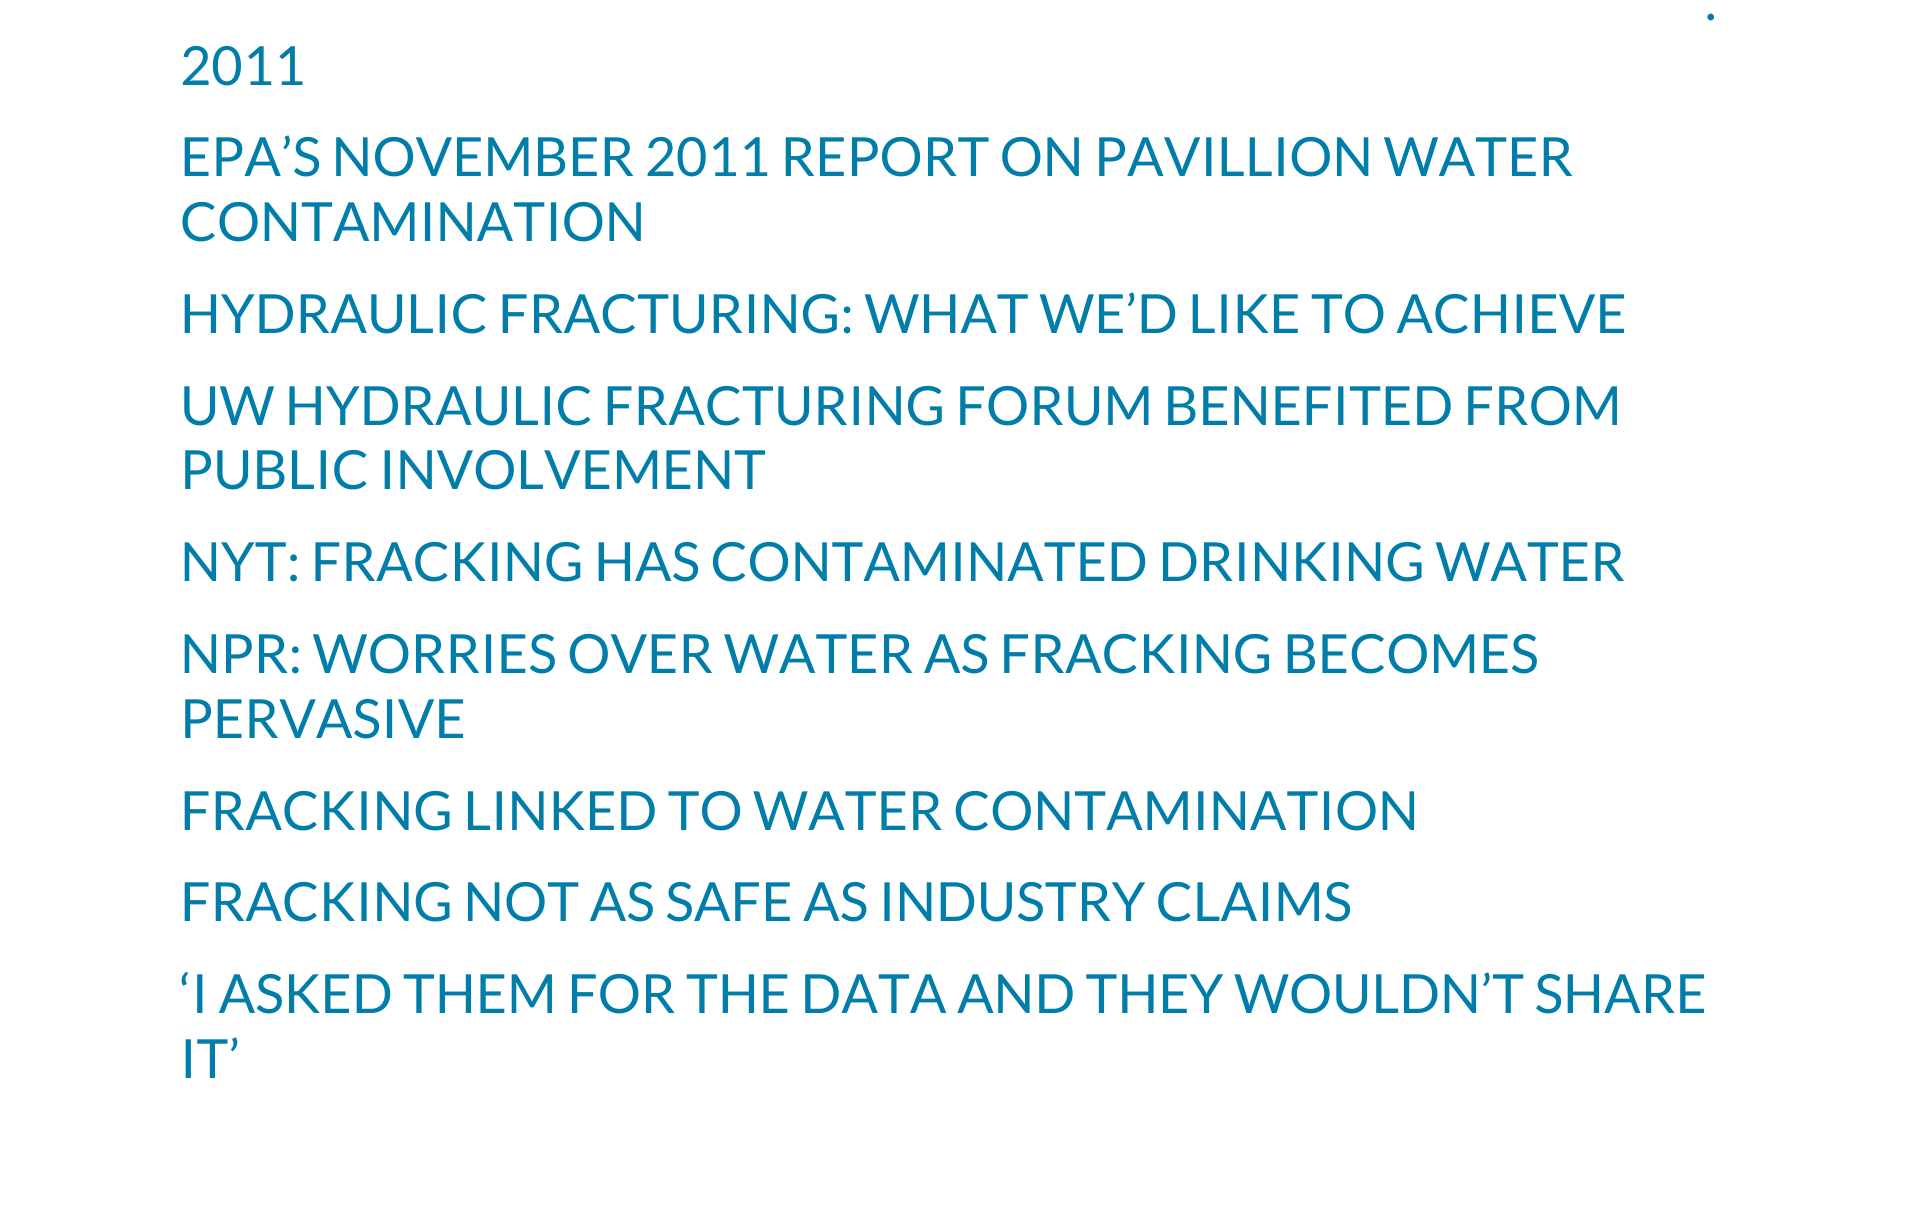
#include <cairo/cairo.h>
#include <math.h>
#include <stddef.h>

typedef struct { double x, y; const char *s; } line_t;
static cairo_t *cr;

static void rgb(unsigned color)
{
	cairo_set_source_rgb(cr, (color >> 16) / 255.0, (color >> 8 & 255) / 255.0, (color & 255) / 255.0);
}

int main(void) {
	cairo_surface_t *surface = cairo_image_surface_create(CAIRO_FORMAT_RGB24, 1912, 1231);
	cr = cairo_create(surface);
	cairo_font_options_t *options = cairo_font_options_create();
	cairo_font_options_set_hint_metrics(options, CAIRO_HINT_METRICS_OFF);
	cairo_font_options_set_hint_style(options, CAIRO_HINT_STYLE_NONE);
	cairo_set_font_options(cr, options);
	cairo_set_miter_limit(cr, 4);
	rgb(0xffffff);
	cairo_paint(cr);
	cairo_select_font_face(cr, "Lato", CAIRO_FONT_SLANT_NORMAL, CAIRO_FONT_WEIGHT_NORMAL);
	cairo_set_font_size(cr, 54);
	rgb(0x007da9);
	{
		static const line_t items[] = {
			{1705, 20, "."},
			{180, 85, "2011"},
			{180, 176, "EPA’S NOVEMBER 2011 REPORT ON PAVILLION WATER"},
			{180, 241, "CONTAMINATION"},
			{180, 333, "HYDRAULIC FRACTURING: WHAT WE’D LIKE TO ACHIEVE"},
			{180, 425, "UW HYDRAULIC FRACTURING FORUM BENEFITED FROM"},
			{180, 489, "PUBLIC INVOLVEMENT"},
			{180, 581, "NYT: FRACKING HAS CONTAMINATED DRINKING WATER"},
			{180, 673, "NPR: WORRIES OVER WATER AS FRACKING BECOMES"},
			{180, 738, "PERVASIVE"},
			{180, 830, "FRACKING LINKED TO WATER CONTAMINATION"},
			{180, 921, "FRACKING NOT AS SAFE AS INDUSTRY CLAIMS"},
			{180, 1013, "‘I ASKED THEM FOR THE DATA AND THEY WOULDN’T SHARE"},
			{180, 1078, "IT’"},
		};
		for (size_t i = 0; i < sizeof items / sizeof *items; i++) {
			cairo_move_to(cr, items[i].x, items[i].y);
			cairo_show_text(cr, items[i].s);
		}
	}
	cairo_surface_write_to_png(surface, "page.png");
	cairo_font_options_destroy(options);
	cairo_destroy(cr);
	cairo_surface_destroy(surface);
	return 0;
}
